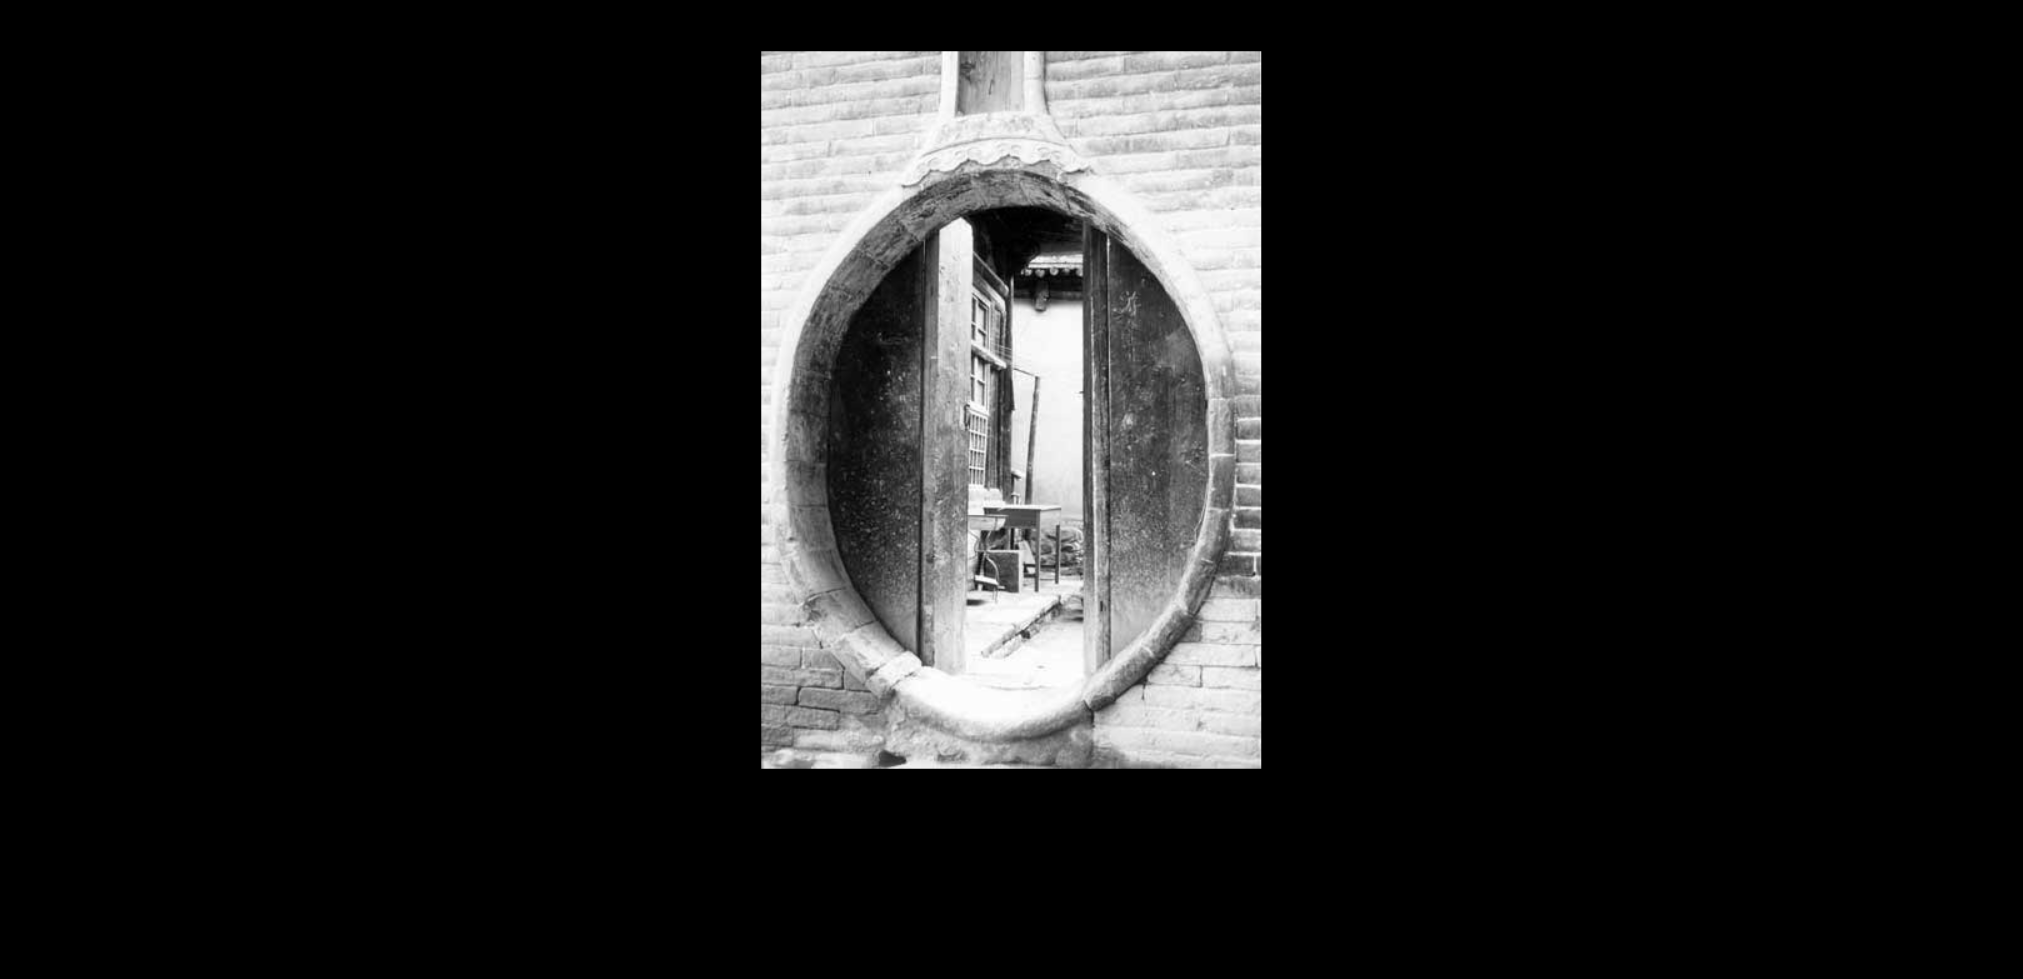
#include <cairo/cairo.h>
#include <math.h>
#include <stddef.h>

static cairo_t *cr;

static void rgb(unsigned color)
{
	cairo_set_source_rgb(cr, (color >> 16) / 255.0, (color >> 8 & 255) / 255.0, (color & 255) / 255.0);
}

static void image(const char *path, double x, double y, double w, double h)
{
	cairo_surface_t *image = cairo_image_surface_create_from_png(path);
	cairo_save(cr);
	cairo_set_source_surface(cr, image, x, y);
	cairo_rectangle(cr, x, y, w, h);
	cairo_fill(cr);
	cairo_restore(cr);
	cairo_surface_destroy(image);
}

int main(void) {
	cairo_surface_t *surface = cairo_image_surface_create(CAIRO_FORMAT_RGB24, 2023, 979);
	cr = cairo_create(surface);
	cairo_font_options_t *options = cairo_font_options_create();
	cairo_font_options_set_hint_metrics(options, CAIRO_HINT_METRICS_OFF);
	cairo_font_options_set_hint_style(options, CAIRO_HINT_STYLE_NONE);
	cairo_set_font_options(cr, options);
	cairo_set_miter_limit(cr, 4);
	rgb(0x000000);
	cairo_paint(cr);
	image("img/1.png", 761, 51, 501, 718);
	cairo_surface_write_to_png(surface, "page.png");
	cairo_font_options_destroy(options);
	cairo_destroy(cr);
	cairo_surface_destroy(surface);
	return 0;
}
